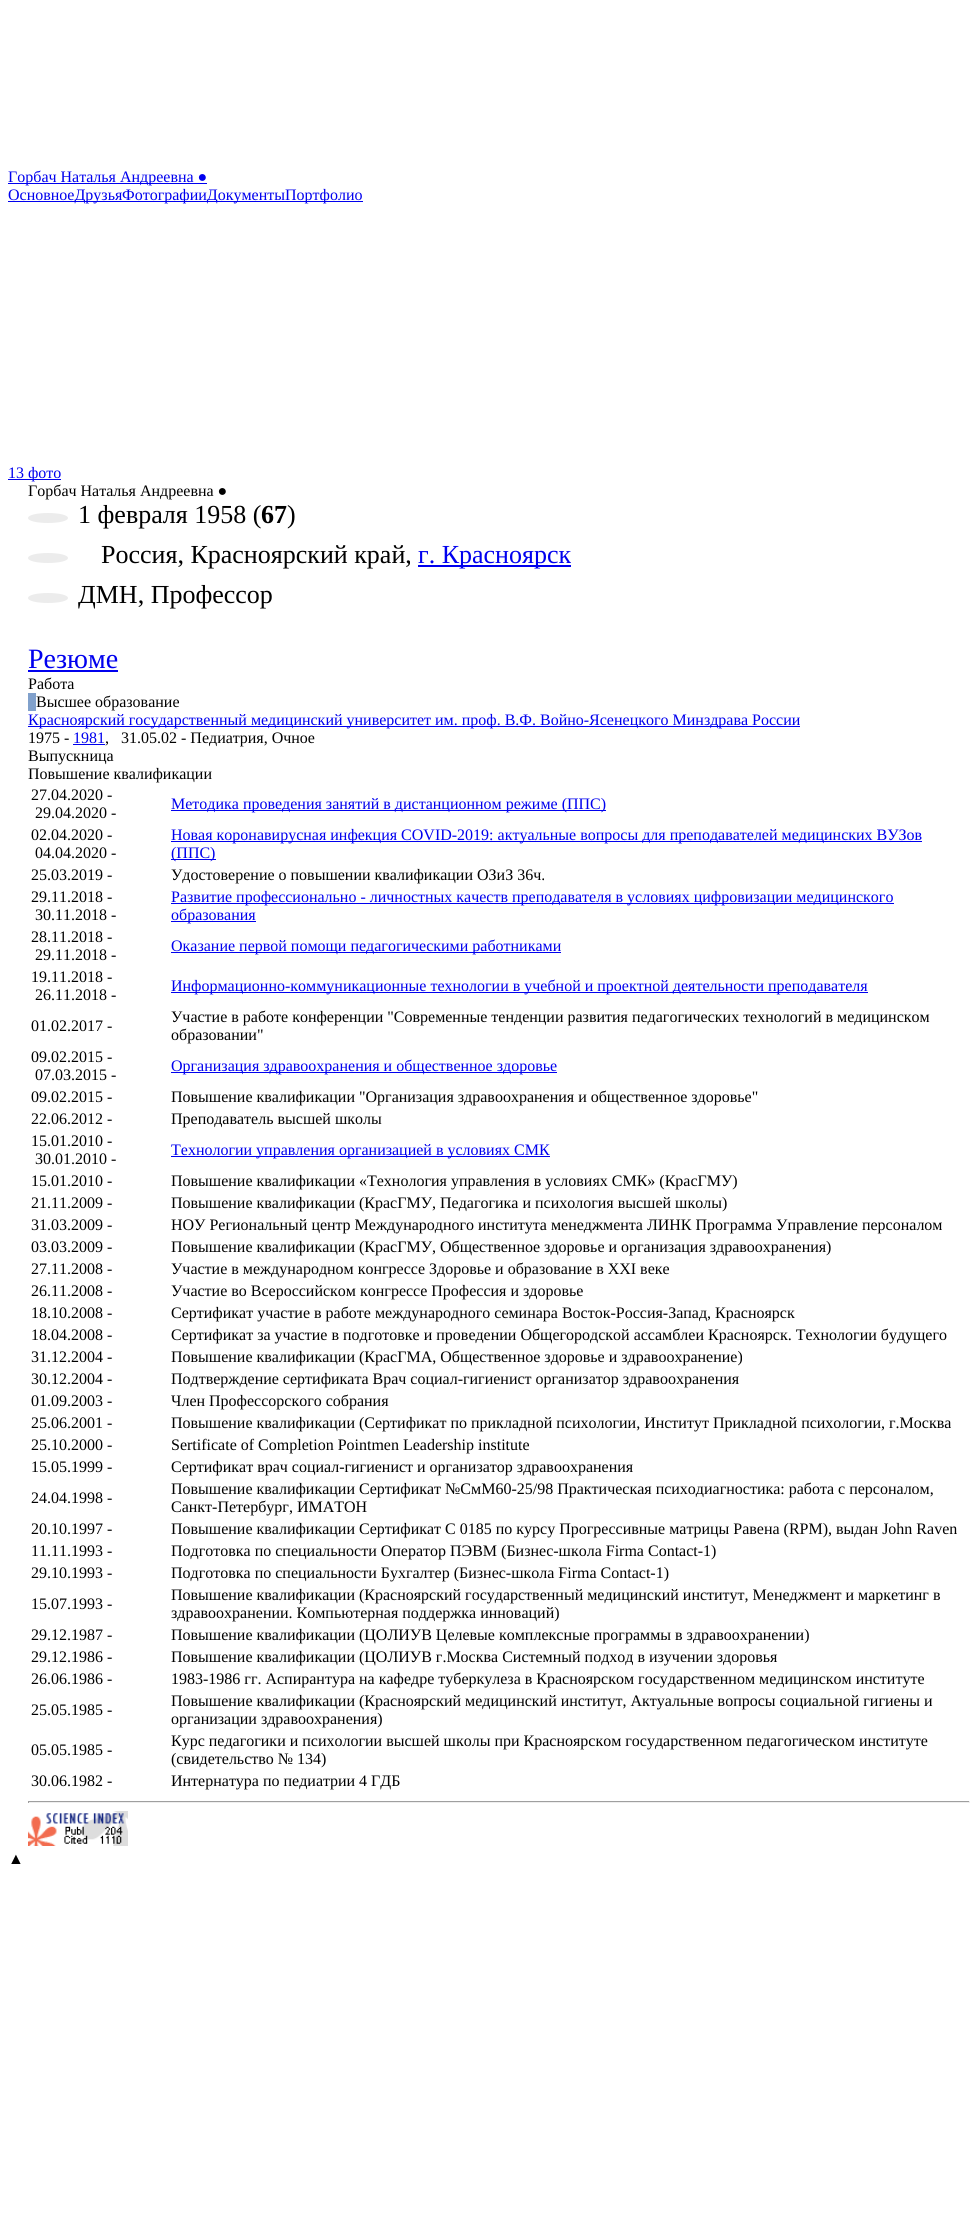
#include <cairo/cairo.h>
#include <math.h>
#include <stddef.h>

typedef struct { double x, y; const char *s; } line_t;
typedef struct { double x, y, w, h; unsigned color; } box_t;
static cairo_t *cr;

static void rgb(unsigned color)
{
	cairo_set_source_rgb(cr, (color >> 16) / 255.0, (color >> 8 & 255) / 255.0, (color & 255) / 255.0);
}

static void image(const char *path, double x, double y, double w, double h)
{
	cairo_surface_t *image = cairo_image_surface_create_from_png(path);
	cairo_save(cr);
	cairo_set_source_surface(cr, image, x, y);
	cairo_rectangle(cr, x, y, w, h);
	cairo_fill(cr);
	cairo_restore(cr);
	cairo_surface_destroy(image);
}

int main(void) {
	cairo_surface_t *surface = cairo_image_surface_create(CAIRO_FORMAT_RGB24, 978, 2229);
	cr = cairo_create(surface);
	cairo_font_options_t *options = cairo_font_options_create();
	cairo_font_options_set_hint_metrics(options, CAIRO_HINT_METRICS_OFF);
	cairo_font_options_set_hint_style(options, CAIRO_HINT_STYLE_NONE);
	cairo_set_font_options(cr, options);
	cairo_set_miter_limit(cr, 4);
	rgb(0xffffff);
	cairo_paint(cr);
	{
		static const box_t items[] = {
			{8, 183, 199, 1, 0x0000ee},
			{8, 201, 114, 1, 0x0000ee},
			{122, 201, 241, 1, 0x0000ee},
			{8, 479, 53, 1, 0x0000ee},
		};
		for (size_t i = 0; i < sizeof items / sizeof *items; i++) {
			rgb(items[i].color);
			cairo_rectangle(cr, items[i].x, items[i].y, items[i].w, items[i].h);
			cairo_fill(cr);
		}
	}
	rgb(0xececec);
	cairo_new_path(cr);
	cairo_move_to(cr, 48, 513);
	cairo_curve_to(cr, 59, 513, 68, 515, 68, 518);
	cairo_curve_to(cr, 68, 521, 59, 523, 48, 523);
	cairo_curve_to(cr, 37, 523, 28, 521, 28, 518);
	cairo_curve_to(cr, 28, 515, 37, 513, 48, 513);
	cairo_close_path(cr);
	cairo_fill(cr);
	cairo_new_path(cr);
	cairo_move_to(cr, 48, 553);
	cairo_curve_to(cr, 59, 553, 68, 555, 68, 558);
	cairo_curve_to(cr, 68, 561, 59, 563, 48, 563);
	cairo_curve_to(cr, 37, 563, 28, 561, 28, 558);
	cairo_curve_to(cr, 28, 555, 37, 553, 48, 553);
	cairo_close_path(cr);
	cairo_fill(cr);
	rgb(0x0000ee);
	cairo_rectangle(cr, 418, 565, 153, 2);
	cairo_fill(cr);
	rgb(0xececec);
	cairo_new_path(cr);
	cairo_move_to(cr, 48, 593);
	cairo_curve_to(cr, 59, 593, 68, 595, 68, 598);
	cairo_curve_to(cr, 68, 601, 59, 603, 48, 603);
	cairo_curve_to(cr, 37, 603, 28, 601, 28, 598);
	cairo_curve_to(cr, 28, 595, 37, 593, 48, 593);
	cairo_close_path(cr);
	cairo_fill(cr);
	{
		static const box_t items[] = {
			{28, 670, 90, 2, 0x0000ee},
			{28, 693, 8, 18, 0x81a1cc},
			{28, 726, 772, 1, 0x0000ee},
			{73, 744, 32, 1, 0x0000ee},
			{171, 810, 435, 1, 0x0000ee},
			{171, 841, 751, 1, 0x0000ee},
			{171, 859, 45, 1, 0x0000ee},
			{171, 903, 723, 1, 0x0000ee},
			{171, 921, 85, 1, 0x0000ee},
			{171, 952, 390, 1, 0x0000ee},
			{171, 992, 697, 1, 0x0000ee},
			{171, 1072, 386, 1, 0x0000ee},
			{171, 1156, 379, 1, 0x0000ee},
			{28, 1801, 942, 1, 0x9f9f9f},
			{969, 1801, 1, 2, 0xeeeeee},
			{28, 1802, 942, 1, 0xeeeeee},
			{28, 1801, 1, 2, 0x9f9f9f},
		};
		for (size_t i = 0; i < sizeof items / sizeof *items; i++) {
			rgb(items[i].color);
			cairo_rectangle(cr, items[i].x, items[i].y, items[i].w, items[i].h);
			cairo_fill(cr);
		}
	}
	image("img/1.png", 28, 1811, 100, 35);
	cairo_select_font_face(cr, "Liberation Serif", CAIRO_FONT_SLANT_NORMAL, CAIRO_FONT_WEIGHT_NORMAL);
	cairo_set_font_size(cr, 16);
	rgb(0x0000ee);
	{
		static const line_t items[] = {
			{8, 182, "Горбач Наталья Андреевна ●"},
			{8, 200, "ОсновноеДрузья"},
			{122, 200, "ФотографииДокументыПортфолио"},
			{8, 478, "13 фото"},
		};
		for (size_t i = 0; i < sizeof items / sizeof *items; i++) {
			cairo_move_to(cr, items[i].x, items[i].y);
			cairo_show_text(cr, items[i].s);
		}
	}
	rgb(0x000000);
	cairo_move_to(cr, 28, 496);
	cairo_show_text(cr, "Горбач Наталья Андреевна ●");
	cairo_set_font_size(cr, 26);
	cairo_move_to(cr, 78, 523);
	cairo_show_text(cr, "1 февраля 1958 (");
	cairo_select_font_face(cr, "Liberation Serif", CAIRO_FONT_SLANT_NORMAL, CAIRO_FONT_WEIGHT_BOLD);
	cairo_move_to(cr, 261, 523);
	cairo_show_text(cr, "67");
	cairo_select_font_face(cr, "Liberation Serif", CAIRO_FONT_SLANT_NORMAL, CAIRO_FONT_WEIGHT_NORMAL);
	cairo_move_to(cr, 287, 523);
	cairo_show_text(cr, ")");
	cairo_move_to(cr, 101, 563);
	cairo_show_text(cr, "Россия, Красноярский край,");
	rgb(0x0000ee);
	cairo_move_to(cr, 418, 563);
	cairo_show_text(cr, "г. Красноярск");
	rgb(0x000000);
	cairo_move_to(cr, 78, 603);
	cairo_show_text(cr, "ДМН, Профессор");
	cairo_set_font_size(cr, 28);
	rgb(0x0000ee);
	cairo_move_to(cr, 28, 668);
	cairo_show_text(cr, "Резюме");
	cairo_set_font_size(cr, 16);
	rgb(0x000000);
	cairo_move_to(cr, 28, 689);
	cairo_show_text(cr, "Работа");
	cairo_move_to(cr, 36, 707);
	cairo_show_text(cr, "Высшее образование");
	rgb(0x0000ee);
	cairo_move_to(cr, 28, 725);
	cairo_show_text(cr, "Красноярский государственный медицинский университет им. проф. В.Ф. Войно-Ясенецкого Минздрава России");
	rgb(0x000000);
	cairo_move_to(cr, 28, 743);
	cairo_show_text(cr, "1975 -");
	rgb(0x0000ee);
	cairo_move_to(cr, 73, 743);
	cairo_show_text(cr, "1981");
	rgb(0x000000);
	{
		static const line_t items[] = {
			{105, 743, ",   31.05.02 - Педиатрия, Очное"},
			{28, 761, "Выпускница"},
			{28, 779, "Повышение квалификации"},
			{31, 800, "27.04.2020 -"},
			{35, 818, "29.04.2020 -"},
		};
		for (size_t i = 0; i < sizeof items / sizeof *items; i++) {
			cairo_move_to(cr, items[i].x, items[i].y);
			cairo_show_text(cr, items[i].s);
		}
	}
	rgb(0x0000ee);
	cairo_move_to(cr, 171, 809);
	cairo_show_text(cr, "Методика проведения занятий в дистанционном режиме (ППС)");
	rgb(0x000000);
	cairo_move_to(cr, 31, 840);
	cairo_show_text(cr, "02.04.2020 -");
	cairo_move_to(cr, 35, 858);
	cairo_show_text(cr, "04.04.2020 -");
	rgb(0x0000ee);
	cairo_move_to(cr, 171, 840);
	cairo_show_text(cr, "Новая коронавирусная инфекция COVID-2019: актуальные вопросы для преподавателей медицинских ВУЗов");
	cairo_move_to(cr, 171, 858);
	cairo_show_text(cr, "(ППС)");
	rgb(0x000000);
	{
		static const line_t items[] = {
			{31, 880, "25.03.2019 -"},
			{171, 880, "Удостоверение о повышении квалификации ОЗиЗ 36ч."},
			{31, 902, "29.11.2018 -"},
			{35, 920, "30.11.2018 -"},
		};
		for (size_t i = 0; i < sizeof items / sizeof *items; i++) {
			cairo_move_to(cr, items[i].x, items[i].y);
			cairo_show_text(cr, items[i].s);
		}
	}
	rgb(0x0000ee);
	cairo_move_to(cr, 171, 902);
	cairo_show_text(cr, "Развитие профессионально - личностных качеств преподавателя в условиях цифровизации медицинского");
	cairo_move_to(cr, 171, 920);
	cairo_show_text(cr, "образования");
	rgb(0x000000);
	cairo_move_to(cr, 31, 942);
	cairo_show_text(cr, "28.11.2018 -");
	cairo_move_to(cr, 35, 960);
	cairo_show_text(cr, "29.11.2018 -");
	rgb(0x0000ee);
	cairo_move_to(cr, 171, 951);
	cairo_show_text(cr, "Оказание первой помощи педагогическими работниками");
	rgb(0x000000);
	cairo_move_to(cr, 31, 982);
	cairo_show_text(cr, "19.11.2018 -");
	cairo_move_to(cr, 35, 1000);
	cairo_show_text(cr, "26.11.2018 -");
	rgb(0x0000ee);
	cairo_move_to(cr, 171, 991);
	cairo_show_text(cr, "Информационно-коммуникационные технологии в учебной и проектной деятельности преподавателя");
	rgb(0x000000);
	{
		static const line_t items[] = {
			{31, 1031, "01.02.2017 -"},
			{171, 1022, "Участие в работе конференции \"Современные тенденции развития педагогических технологий в медицинском"},
			{171, 1040, "образовании\""},
			{31, 1062, "09.02.2015 -"},
			{35, 1080, "07.03.2015 -"},
		};
		for (size_t i = 0; i < sizeof items / sizeof *items; i++) {
			cairo_move_to(cr, items[i].x, items[i].y);
			cairo_show_text(cr, items[i].s);
		}
	}
	rgb(0x0000ee);
	cairo_move_to(cr, 171, 1071);
	cairo_show_text(cr, "Организация здравоохранения и общественное здоровье");
	rgb(0x000000);
	{
		static const line_t items[] = {
			{31, 1102, "09.02.2015 -"},
			{171, 1102, "Повышение квалификации \"Организация здравоохранения и общественное здоровье\""},
			{31, 1124, "22.06.2012 -"},
			{171, 1124, "Преподаватель высшей школы"},
			{31, 1146, "15.01.2010 -"},
			{35, 1164, "30.01.2010 -"},
		};
		for (size_t i = 0; i < sizeof items / sizeof *items; i++) {
			cairo_move_to(cr, items[i].x, items[i].y);
			cairo_show_text(cr, items[i].s);
		}
	}
	rgb(0x0000ee);
	cairo_move_to(cr, 171, 1155);
	cairo_show_text(cr, "Технологии управления организацией в условиях СМК");
	rgb(0x000000);
	{
		static const line_t items[] = {
			{31, 1186, "15.01.2010 -"},
			{171, 1186, "Повышение квалификации «Технология управления в условиях СМК» (КрасГМУ)"},
			{31, 1208, "21.11.2009 -"},
			{171, 1208, "Повышение квалификации (КрасГМУ, Педагогика и психология высшей школы)"},
			{31, 1230, "31.03.2009 -"},
			{171, 1230, "НОУ Региональный центр Международного института менеджмента ЛИНК Программа Управление персоналом"},
			{31, 1252, "03.03.2009 -"},
			{171, 1252, "Повышение квалификации (КрасГМУ, Общественное здоровье и организация здравоохранения)"},
			{31, 1274, "27.11.2008 -"},
			{171, 1274, "Участие в международном конгрессе Здоровье и образование в XXI веке"},
			{31, 1296, "26.11.2008 -"},
			{171, 1296, "Участие во Всероссийском конгрессе Профессия и здоровье"},
			{31, 1318, "18.10.2008 -"},
			{171, 1318, "Сертификат участие в работе международного семинара Восток-Россия-Запад, Красноярск"},
			{31, 1340, "18.04.2008 -"},
			{171, 1340, "Сертификат за участие в подготовке и проведении Общегородской ассамблеи Красноярск. Технологии будущего"},
			{31, 1362, "31.12.2004 -"},
			{171, 1362, "Повышение квалификации (КрасГМА, Общественное здоровье и здравоохранение)"},
			{31, 1384, "30.12.2004 -"},
			{171, 1384, "Подтверждение сертификата Врач социал-гигиенист организатор здравоохранения"},
			{31, 1406, "01.09.2003 -"},
			{171, 1406, "Член Профессорского собрания"},
			{31, 1428, "25.06.2001 -"},
			{171, 1428, "Повышение квалификации (Сертификат по прикладной психологии, Институт Прикладной психологии, г.Москва"},
			{31, 1450, "25.10.2000 -"},
			{171, 1450, "Sertificate of Completion Pointmen Leadership institute"},
			{31, 1472, "15.05.1999 -"},
			{171, 1472, "Сертификат врач социал-гигиенист и организатор здравоохранения"},
			{31, 1503, "24.04.1998 -"},
			{171, 1494, "Повышение квалификации Сертификат №СмМ60-25/98 Практическая психодиагностика: работа с персоналом,"},
			{171, 1512, "Санкт-Петербург, ИМАТОН"},
			{31, 1534, "20.10.1997 -"},
			{171, 1534, "Повышение квалификации Сертификат C 0185 по курсу Прогрессивные матрицы Равена (RPM), выдан John Raven"},
			{31, 1556, "11.11.1993 -"},
			{171, 1556, "Подготовка по специальности Оператор ПЭВМ (Бизнес-школа Firma Contact-1)"},
			{31, 1578, "29.10.1993 -"},
			{171, 1578, "Подготовка по специальности Бухгалтер (Бизнес-школа Firma Contact-1)"},
			{31, 1609, "15.07.1993 -"},
			{171, 1600, "Повышение квалификации (Красноярский государственный медицинский институт, Менеджмент и маркетинг в"},
			{171, 1618, "здравоохранении. Компьютерная поддержка инноваций)"},
			{31, 1640, "29.12.1987 -"},
			{171, 1640, "Повышение квалификации (ЦОЛИУВ Целевые комплексные программы в здравоохранении)"},
			{31, 1662, "29.12.1986 -"},
			{171, 1662, "Повышение квалификации (ЦОЛИУВ г.Москва Системный подход в изучении здоровья"},
			{31, 1684, "26.06.1986 -"},
			{171, 1684, "1983-1986 гг. Аспирантура на кафедре туберкулеза в Красноярском государственном медицинском институте"},
			{31, 1715, "25.05.1985 -"},
			{171, 1706, "Повышение квалификации (Красноярский медицинский институт, Актуальные вопросы социальной гигиены и"},
			{171, 1724, "организации здравоохранения)"},
			{31, 1755, "05.05.1985 -"},
			{171, 1746, "Курс педагогики и психологии высшей школы при Красноярском государственном педагогическом институте"},
			{171, 1764, "(свидетельство № 134)"},
			{31, 1786, "30.06.1982 -"},
			{171, 1786, "Интернатура по педиатрии 4 ГДБ"},
			{8, 1864, "▲"},
		};
		for (size_t i = 0; i < sizeof items / sizeof *items; i++) {
			cairo_move_to(cr, items[i].x, items[i].y);
			cairo_show_text(cr, items[i].s);
		}
	}
	cairo_surface_write_to_png(surface, "page.png");
	cairo_font_options_destroy(options);
	cairo_destroy(cr);
	cairo_surface_destroy(surface);
	return 0;
}
